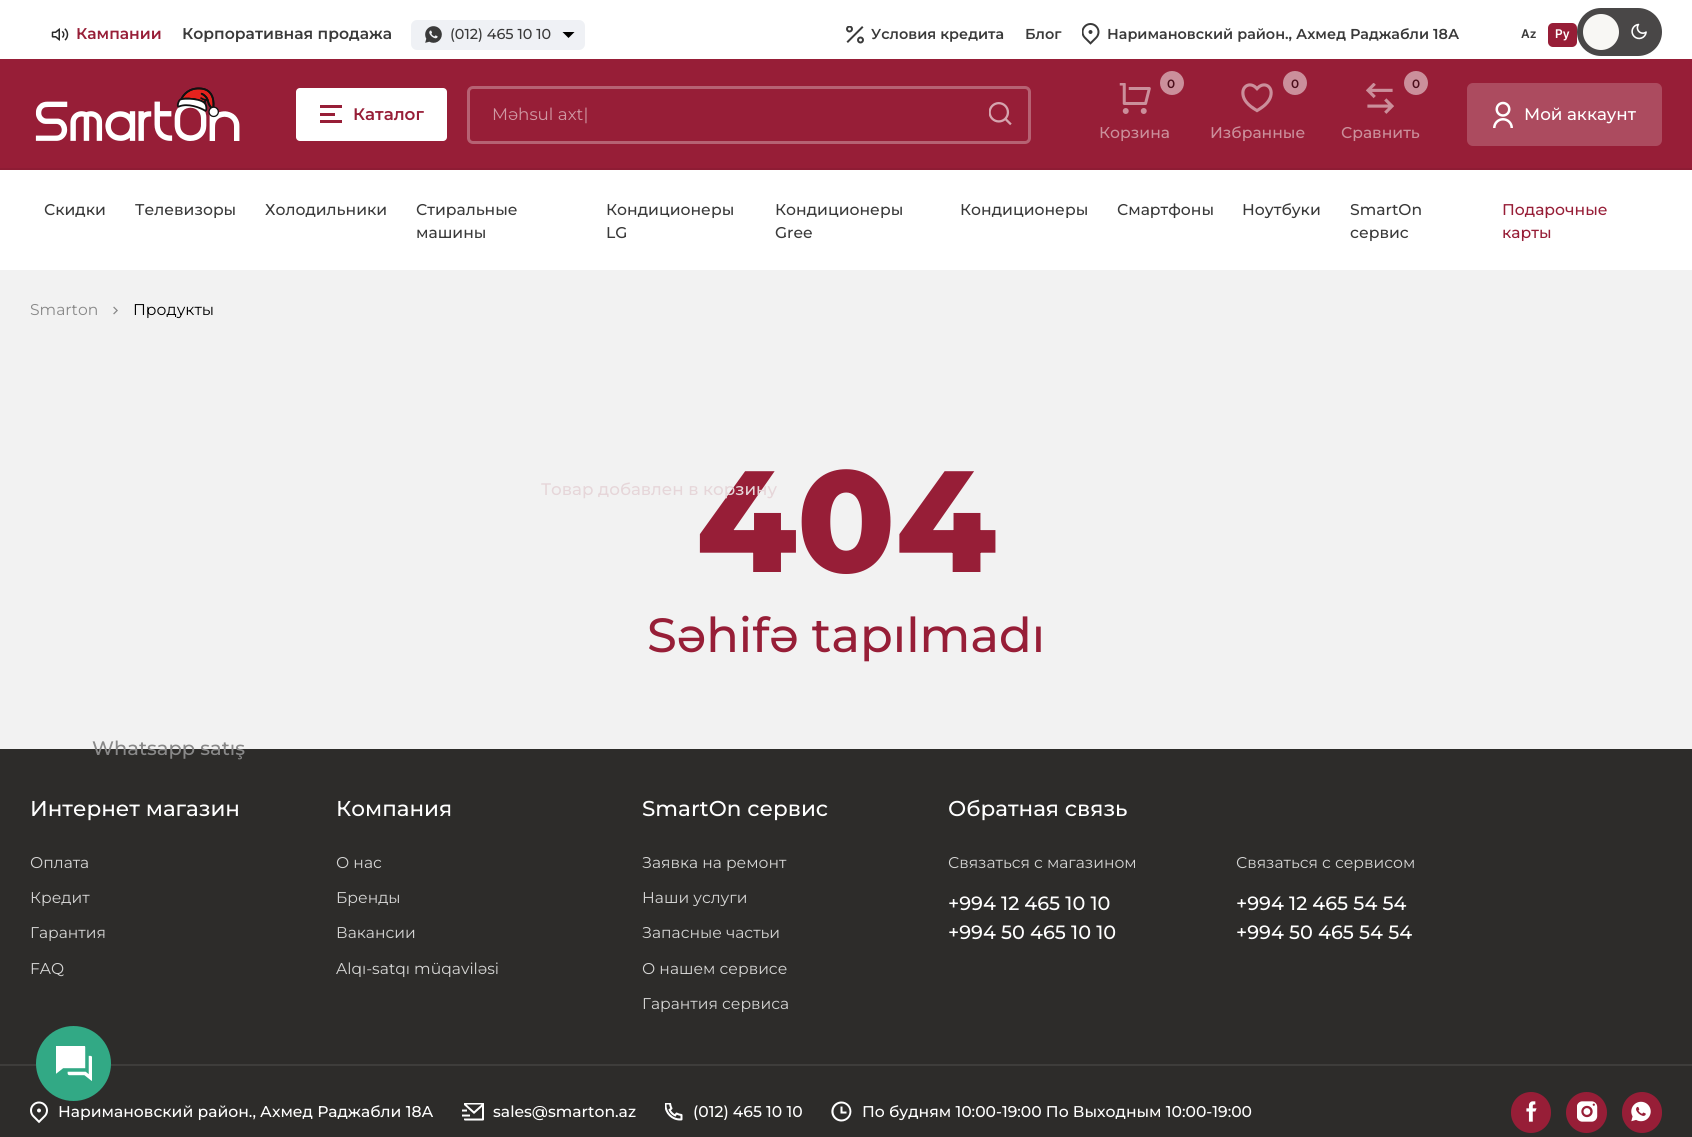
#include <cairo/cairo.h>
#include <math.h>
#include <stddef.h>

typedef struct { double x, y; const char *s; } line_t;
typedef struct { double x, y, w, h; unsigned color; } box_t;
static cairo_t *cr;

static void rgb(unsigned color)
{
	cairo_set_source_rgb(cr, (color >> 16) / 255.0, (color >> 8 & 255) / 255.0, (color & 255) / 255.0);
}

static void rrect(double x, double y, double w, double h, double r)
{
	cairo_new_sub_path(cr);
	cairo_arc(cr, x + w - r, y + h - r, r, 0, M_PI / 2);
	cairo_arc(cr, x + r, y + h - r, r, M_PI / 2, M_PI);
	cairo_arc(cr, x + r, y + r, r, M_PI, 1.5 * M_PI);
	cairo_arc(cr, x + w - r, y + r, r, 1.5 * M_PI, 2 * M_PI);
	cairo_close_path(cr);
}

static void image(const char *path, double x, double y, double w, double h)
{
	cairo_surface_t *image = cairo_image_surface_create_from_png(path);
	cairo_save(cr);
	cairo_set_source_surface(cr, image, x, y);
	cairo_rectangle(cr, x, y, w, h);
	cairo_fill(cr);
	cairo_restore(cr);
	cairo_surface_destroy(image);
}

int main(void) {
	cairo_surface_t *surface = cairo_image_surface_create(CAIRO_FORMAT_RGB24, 1692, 1137);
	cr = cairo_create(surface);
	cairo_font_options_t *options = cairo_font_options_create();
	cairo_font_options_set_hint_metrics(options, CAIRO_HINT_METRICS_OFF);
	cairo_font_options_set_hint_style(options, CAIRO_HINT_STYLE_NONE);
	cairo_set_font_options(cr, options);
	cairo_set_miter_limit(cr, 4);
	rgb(0xf2f2f2);
	cairo_paint(cr);
	rgb(0xffffff);
	cairo_rectangle(cr, 0, 0, 1692, 59);
	cairo_fill(cr);
	image("img/1.png", 51, 28, 18, 13);
	rgb(0xeff1f5);
	rrect(411, 20, 174, 30, 6);
	cairo_fill(cr);
	rgb(0x000000);
	cairo_new_path(cr);
	cairo_move_to(cr, 568.5, 38);
	cairo_line_to(cr, 562.5, 32);
	cairo_line_to(cr, 574.5, 32);
	cairo_close_path(cr);
	cairo_fill(cr);
	image("img/2.png", 425, 26, 17, 17);
	image("img/3.png", 846, 26, 18, 18);
	image("img/4.png", 1082, 23, 18, 22);
	rgb(0x971e37);
	rrect(1548, 23, 29, 24, 5);
	cairo_fill(cr);
	rgb(0x494747);
	rrect(1577, 8, 85, 48, 24);
	cairo_fill(cr);
	rgb(0xf8f7f4);
	cairo_arc(cr, 1601, 32, 18, 0, 2 * M_PI);
	cairo_fill(cr);
	image("img/5.png", 1631, 23, 16, 17);
	rgb(0x971e37);
	cairo_rectangle(cr, 0, 59, 1692, 109);
	cairo_fill(cr);
	rgb(0x8e1c34);
	cairo_rectangle(cr, 0, 168, 1692, 2);
	cairo_fill(cr);
	image("img/6.png", 35, 87, 205, 54);
	rgb(0xffffff);
	rrect(295, 87, 153, 55, 5);
	cairo_fill_preserve(cr);
	rgb(0x971e37);
	cairo_stroke(cr);
	{
		static const box_t items[] = {
			{320, 113, 15, 3, 0x971e37},
			{320, 105, 22, 3, 0x971e37},
			{320, 120, 22, 3, 0x971e37},
		};
		for (size_t i = 0; i < sizeof items / sizeof *items; i++) {
			rgb(items[i].color);
			cairo_rectangle(cr, items[i].x, items[i].y, items[i].w, items[i].h);
			cairo_fill(cr);
		}
	}
	rrect(468.5, 87.5, 561, 55, 4.5);
	rgb(0xb66273);
	cairo_set_line_width(cr, 3);
	cairo_stroke(cr);
	image("img/7.png", 989, 102, 23, 24);
	image("img/8.png", 1119, 83, 32, 31);
	rgb(0xcb8f9b);
	cairo_arc(cr, 1172, 83, 12, 0, 2 * M_PI);
	cairo_fill(cr);
	image("img/9.png", 1241, 83, 32, 30);
	cairo_arc(cr, 1295, 83, 12, 0, 2 * M_PI);
	cairo_fill(cr);
	image("img/10.png", 1366, 83, 28, 31);
	cairo_arc(cr, 1416, 83, 12, 0, 2 * M_PI);
	cairo_fill(cr);
	rgb(0xac4b5f);
	rrect(1467, 83, 195, 63, 6);
	cairo_fill(cr);
	image("img/11.png", 1493, 101, 20, 27);
	rgb(0xffffff);
	cairo_rectangle(cr, 0, 170, 1692, 100);
	cairo_fill(cr);
	image("img/12.png", 113, 306, 5, 9);
	rgb(0x2d2c2a);
	cairo_rectangle(cr, 0, 749, 1692, 388);
	cairo_fill(cr);
	rgb(0x3e3d3b);
	cairo_rectangle(cr, 0, 1064, 1692, 2);
	cairo_fill(cr);
	rgb(0x32a985);
	cairo_arc(cr, 73.5, 1063.5, 37.5, 0, 2 * M_PI);
	cairo_fill(cr);
	image("img/13.png", 56, 1046, 36, 35);
	image("img/14.png", 30, 1101, 18, 23);
	image("img/15.png", 462, 1103, 22, 18);
	image("img/16.png", 665, 1103, 18, 18);
	image("img/17.png", 831, 1101, 21, 21);
	rgb(0x971e37);
	rrect(1511, 1092, 40, 41, 20);
	cairo_fill(cr);
	image("img/18.png", 1526, 1101, 11, 21);
	cairo_arc(cr, 1586.5, 1112.5, 20.5, 0, 2 * M_PI);
	cairo_fill(cr);
	image("img/19.png", 1577, 1101, 21, 21);
	rrect(1622, 1092, 40, 41, 20);
	cairo_fill(cr);
	image("img/20.png", 1631, 1101, 20, 21);
	cairo_select_font_face(cr, "Montserrat SemiBold", CAIRO_FONT_SLANT_NORMAL, CAIRO_FONT_WEIGHT_NORMAL);
	cairo_set_font_size(cr, 15.6);
	cairo_move_to(cr, 76, 39);
	cairo_show_text(cr, "Кампании");
	rgb(0x3a3a3a);
	cairo_move_to(cr, 182, 39);
	cairo_show_text(cr, "Корпоративная продажа");
	cairo_select_font_face(cr, "Montserrat Medium", CAIRO_FONT_SLANT_NORMAL, CAIRO_FONT_WEIGHT_NORMAL);
	cairo_set_font_size(cr, 14.4);
	cairo_move_to(cr, 450, 39);
	cairo_show_text(cr, "(012) 465 10 10");
	cairo_select_font_face(cr, "Montserrat SemiBold", CAIRO_FONT_SLANT_NORMAL, CAIRO_FONT_WEIGHT_NORMAL);
	{
		static const line_t items[] = {
			{871, 39, "Условия кредита"},
			{1025, 39, "Блог"},
			{1107, 39, "Наримановский район., Ахмед Раджабли 18А"},
		};
		for (size_t i = 0; i < sizeof items / sizeof *items; i++) {
			cairo_move_to(cr, items[i].x, items[i].y);
			cairo_show_text(cr, items[i].s);
		}
	}
	cairo_select_font_face(cr, "Inter SemiBold", CAIRO_FONT_SLANT_NORMAL, CAIRO_FONT_WEIGHT_NORMAL);
	cairo_set_font_size(cr, 12);
	cairo_move_to(cr, 1521, 38);
	cairo_show_text(cr, "Az");
	rgb(0xffffff);
	cairo_move_to(cr, 1555, 38);
	cairo_show_text(cr, "Ру");
	cairo_select_font_face(cr, "Montserrat SemiBold", CAIRO_FONT_SLANT_NORMAL, CAIRO_FONT_WEIGHT_NORMAL);
	cairo_set_font_size(cr, 16.75);
	rgb(0x971e37);
	cairo_move_to(cr, 353, 120);
	cairo_show_text(cr, "Каталог");
	cairo_select_font_face(cr, "Montserrat", CAIRO_FONT_SLANT_NORMAL, CAIRO_FONT_WEIGHT_NORMAL);
	rgb(0xcf98a3);
	cairo_move_to(cr, 492, 120);
	cairo_show_text(cr, "Məhsul axt|");
	cairo_select_font_face(cr, "Montserrat SemiBold", CAIRO_FONT_SLANT_NORMAL, CAIRO_FONT_WEIGHT_NORMAL);
	cairo_set_font_size(cr, 12);
	rgb(0x4c0f1c);
	cairo_move_to(cr, 1167, 88);
	cairo_show_text(cr, "0");
	cairo_select_font_face(cr, "Montserrat Medium", CAIRO_FONT_SLANT_NORMAL, CAIRO_FONT_WEIGHT_NORMAL);
	cairo_set_font_size(cr, 15.6);
	rgb(0xcb8f9b);
	cairo_move_to(cr, 1099, 138);
	cairo_show_text(cr, "Корзина");
	cairo_select_font_face(cr, "Montserrat SemiBold", CAIRO_FONT_SLANT_NORMAL, CAIRO_FONT_WEIGHT_NORMAL);
	cairo_set_font_size(cr, 12);
	rgb(0x4c0f1c);
	cairo_move_to(cr, 1291, 88);
	cairo_show_text(cr, "0");
	cairo_select_font_face(cr, "Montserrat Medium", CAIRO_FONT_SLANT_NORMAL, CAIRO_FONT_WEIGHT_NORMAL);
	cairo_set_font_size(cr, 15.6);
	rgb(0xcb8f9b);
	cairo_move_to(cr, 1210, 138);
	cairo_show_text(cr, "Избранные");
	cairo_select_font_face(cr, "Montserrat SemiBold", CAIRO_FONT_SLANT_NORMAL, CAIRO_FONT_WEIGHT_NORMAL);
	cairo_set_font_size(cr, 12);
	rgb(0x4c0f1c);
	cairo_move_to(cr, 1412, 88);
	cairo_show_text(cr, "0");
	cairo_select_font_face(cr, "Montserrat Medium", CAIRO_FONT_SLANT_NORMAL, CAIRO_FONT_WEIGHT_NORMAL);
	cairo_set_font_size(cr, 15.6);
	rgb(0xcb8f9b);
	cairo_move_to(cr, 1341, 138);
	cairo_show_text(cr, "Сравнить");
	cairo_set_font_size(cr, 16.75);
	rgb(0xffffff);
	cairo_move_to(cr, 1524, 120);
	cairo_show_text(cr, "Мой аккаунт");
	cairo_set_font_size(cr, 15.6);
	rgb(0x3a3a3a);
	{
		static const line_t items[] = {
			{44, 215, "Скидки"},
			{135, 215, "Телевизоры"},
			{265, 215, "Холодильники"},
			{416, 215, "Стиральные"},
			{416, 238, "машины"},
			{606, 215, "Кондиционеры"},
			{606, 238, "LG"},
			{775, 215, "Кондиционеры"},
			{775, 238, "Gree"},
			{960, 215, "Кондиционеры"},
			{1117, 215, "Смартфоны"},
			{1242, 215, "Ноутбуки"},
			{1350, 215, "SmartOn"},
			{1350, 238, "сервис"},
		};
		for (size_t i = 0; i < sizeof items / sizeof *items; i++) {
			cairo_move_to(cr, items[i].x, items[i].y);
			cairo_show_text(cr, items[i].s);
		}
	}
	rgb(0x971e37);
	cairo_move_to(cr, 1502, 215);
	cairo_show_text(cr, "Подарочные");
	cairo_move_to(cr, 1502, 238);
	cairo_show_text(cr, "карты");
	cairo_select_font_face(cr, "Montserrat", CAIRO_FONT_SLANT_NORMAL, CAIRO_FONT_WEIGHT_NORMAL);
	rgb(0x888888);
	cairo_move_to(cr, 30, 315);
	cairo_show_text(cr, "Smarton");
	rgb(0x000000);
	cairo_move_to(cr, 133, 315);
	cairo_show_text(cr, "Продукты");
	cairo_select_font_face(cr, "Montserrat ExtraBold", CAIRO_FONT_SLANT_NORMAL, CAIRO_FONT_WEIGHT_NORMAL);
	cairo_set_font_size(cr, 144);
	rgb(0x971e37);
	cairo_move_to(cr, 696, 572);
	cairo_show_text(cr, "404");
	cairo_select_font_face(cr, "Montserrat Medium", CAIRO_FONT_SLANT_NORMAL, CAIRO_FONT_WEIGHT_NORMAL);
	cairo_set_font_size(cr, 48);
	cairo_move_to(cr, 647, 652);
	cairo_show_text(cr, "Səhifə tapılmadı");
	cairo_set_font_size(cr, 16.75);
	rgb(0xe6d6d9);
	cairo_move_to(cr, 541, 495);
	cairo_show_text(cr, "Товар добавлен в корзину");
	cairo_set_font_size(cr, 19.5);
	rgb(0x888888);
	cairo_move_to(cr, 92, 755);
	cairo_show_text(cr, "Whatsapp satış");
	cairo_set_font_size(cr, 21.5);
	rgb(0xffffff);
	cairo_move_to(cr, 30, 816);
	cairo_show_text(cr, "Интернет магазин");
	cairo_select_font_face(cr, "Montserrat", CAIRO_FONT_SLANT_NORMAL, CAIRO_FONT_WEIGHT_NORMAL);
	cairo_set_font_size(cr, 15.6);
	rgb(0xd5d5d4);
	{
		static const line_t items[] = {
			{30, 868, "Оплата"},
			{30, 903, "Кредит"},
			{30, 938, "Гарантия"},
			{30, 974, "FAQ"},
		};
		for (size_t i = 0; i < sizeof items / sizeof *items; i++) {
			cairo_move_to(cr, items[i].x, items[i].y);
			cairo_show_text(cr, items[i].s);
		}
	}
	cairo_select_font_face(cr, "Montserrat Medium", CAIRO_FONT_SLANT_NORMAL, CAIRO_FONT_WEIGHT_NORMAL);
	cairo_set_font_size(cr, 21.5);
	rgb(0xffffff);
	cairo_move_to(cr, 336, 816);
	cairo_show_text(cr, "Компания");
	cairo_select_font_face(cr, "Montserrat", CAIRO_FONT_SLANT_NORMAL, CAIRO_FONT_WEIGHT_NORMAL);
	cairo_set_font_size(cr, 15.6);
	rgb(0xd5d5d4);
	{
		static const line_t items[] = {
			{336, 868, "О нас"},
			{336, 903, "Бренды"},
			{336, 938, "Вакансии"},
			{336, 974, "Alqı-satqı müqaviləsi"},
		};
		for (size_t i = 0; i < sizeof items / sizeof *items; i++) {
			cairo_move_to(cr, items[i].x, items[i].y);
			cairo_show_text(cr, items[i].s);
		}
	}
	cairo_select_font_face(cr, "Montserrat Medium", CAIRO_FONT_SLANT_NORMAL, CAIRO_FONT_WEIGHT_NORMAL);
	cairo_set_font_size(cr, 21.5);
	rgb(0xffffff);
	cairo_move_to(cr, 642, 816);
	cairo_show_text(cr, "SmartOn сервис");
	cairo_select_font_face(cr, "Montserrat", CAIRO_FONT_SLANT_NORMAL, CAIRO_FONT_WEIGHT_NORMAL);
	cairo_set_font_size(cr, 15.6);
	rgb(0xd5d5d4);
	{
		static const line_t items[] = {
			{642, 868, "Заявка на ремонт"},
			{642, 903, "Наши услуги"},
			{642, 938, "Запасные частьи"},
			{642, 974, "О нашем сервисе"},
			{642, 1009, "Гарантия сервиса"},
		};
		for (size_t i = 0; i < sizeof items / sizeof *items; i++) {
			cairo_move_to(cr, items[i].x, items[i].y);
			cairo_show_text(cr, items[i].s);
		}
	}
	cairo_select_font_face(cr, "Montserrat Medium", CAIRO_FONT_SLANT_NORMAL, CAIRO_FONT_WEIGHT_NORMAL);
	cairo_set_font_size(cr, 21.5);
	rgb(0xffffff);
	cairo_move_to(cr, 948, 816);
	cairo_show_text(cr, "Обратная связь");
	cairo_select_font_face(cr, "Montserrat", CAIRO_FONT_SLANT_NORMAL, CAIRO_FONT_WEIGHT_NORMAL);
	cairo_set_font_size(cr, 15.6);
	rgb(0xd5d5d4);
	cairo_move_to(cr, 948, 868);
	cairo_show_text(cr, "Связаться с магазином");
	cairo_move_to(cr, 1236, 868);
	cairo_show_text(cr, "Связаться с сервисом");
	cairo_select_font_face(cr, "Montserrat Medium", CAIRO_FONT_SLANT_NORMAL, CAIRO_FONT_WEIGHT_NORMAL);
	cairo_set_font_size(cr, 19.25);
	rgb(0xffffff);
	{
		static const line_t items[] = {
			{948, 910, "+994 12 465 10 10"},
			{1236, 910, "+994 12 465 54 54"},
			{948, 939, "+994 50 465 10 10"},
			{1236, 939, "+994 50 465 54 54"},
		};
		for (size_t i = 0; i < sizeof items / sizeof *items; i++) {
			cairo_move_to(cr, items[i].x, items[i].y);
			cairo_show_text(cr, items[i].s);
		}
	}
	cairo_set_font_size(cr, 15.6);
	{
		static const line_t items[] = {
			{58, 1117, "Наримановский район., Ахмед Раджабли 18А"},
			{493, 1117, "sales@smarton.az"},
			{693, 1117, "(012) 465 10 10"},
			{862, 1117, "По будням 10:00-19:00 По Выходным 10:00-19:00"},
		};
		for (size_t i = 0; i < sizeof items / sizeof *items; i++) {
			cairo_move_to(cr, items[i].x, items[i].y);
			cairo_show_text(cr, items[i].s);
		}
	}
	cairo_surface_write_to_png(surface, "page.png");
	cairo_font_options_destroy(options);
	cairo_destroy(cr);
	cairo_surface_destroy(surface);
	return 0;
}
